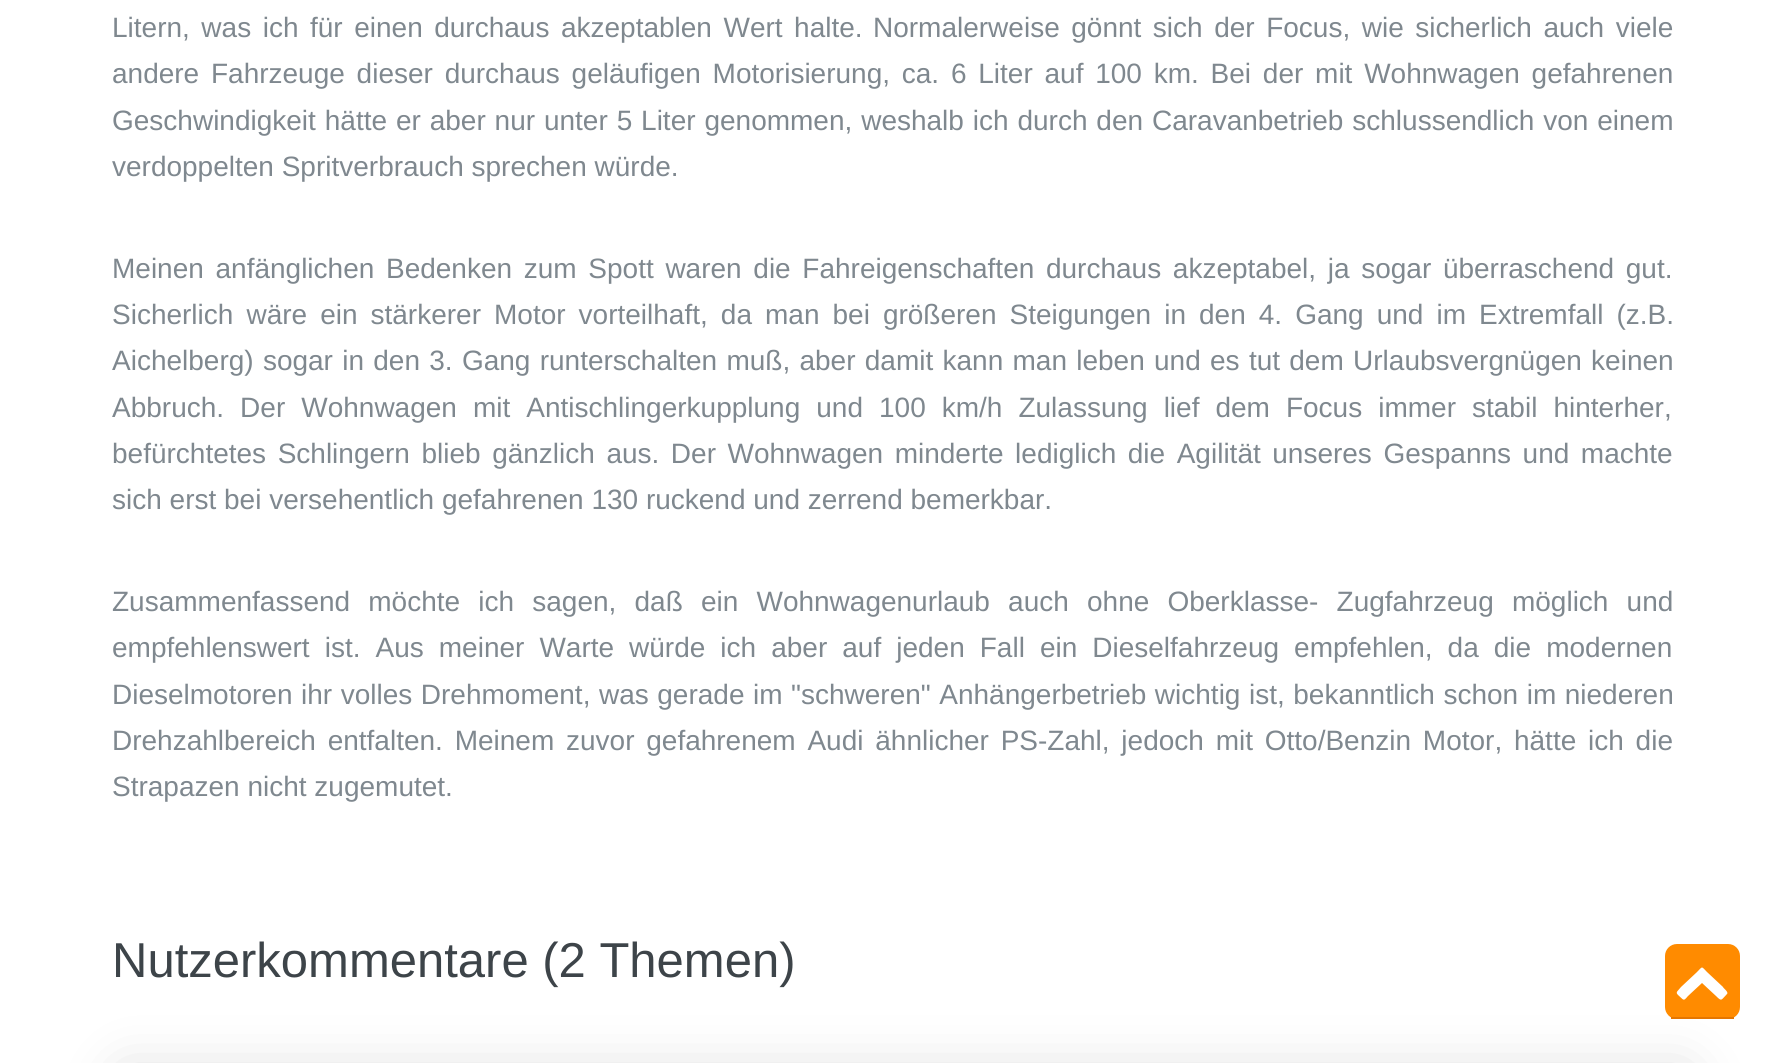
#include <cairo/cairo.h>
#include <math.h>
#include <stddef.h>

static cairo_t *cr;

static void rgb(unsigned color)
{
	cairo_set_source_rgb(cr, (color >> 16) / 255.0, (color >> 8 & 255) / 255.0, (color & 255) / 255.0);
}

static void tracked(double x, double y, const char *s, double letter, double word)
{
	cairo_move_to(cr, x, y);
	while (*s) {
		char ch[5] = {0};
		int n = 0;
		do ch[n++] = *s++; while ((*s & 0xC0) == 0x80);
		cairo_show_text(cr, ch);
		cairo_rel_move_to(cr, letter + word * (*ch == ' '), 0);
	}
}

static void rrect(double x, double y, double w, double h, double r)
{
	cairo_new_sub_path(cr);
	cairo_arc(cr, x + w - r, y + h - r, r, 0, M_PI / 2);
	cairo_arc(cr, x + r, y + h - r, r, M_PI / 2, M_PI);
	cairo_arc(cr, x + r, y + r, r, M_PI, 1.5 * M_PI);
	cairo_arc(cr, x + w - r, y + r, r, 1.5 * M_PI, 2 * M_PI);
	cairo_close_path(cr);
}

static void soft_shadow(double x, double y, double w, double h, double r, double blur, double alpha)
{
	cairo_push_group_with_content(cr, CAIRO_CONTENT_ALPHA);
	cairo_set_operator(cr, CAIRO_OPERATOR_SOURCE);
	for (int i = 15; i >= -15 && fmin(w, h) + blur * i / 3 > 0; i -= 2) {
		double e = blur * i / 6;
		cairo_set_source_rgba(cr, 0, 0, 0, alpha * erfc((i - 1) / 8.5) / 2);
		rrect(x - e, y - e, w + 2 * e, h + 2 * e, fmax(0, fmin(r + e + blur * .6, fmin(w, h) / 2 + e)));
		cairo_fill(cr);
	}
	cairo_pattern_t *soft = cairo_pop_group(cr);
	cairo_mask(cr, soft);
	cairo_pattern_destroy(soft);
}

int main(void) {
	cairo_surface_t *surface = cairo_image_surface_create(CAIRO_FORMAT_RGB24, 1784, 1063);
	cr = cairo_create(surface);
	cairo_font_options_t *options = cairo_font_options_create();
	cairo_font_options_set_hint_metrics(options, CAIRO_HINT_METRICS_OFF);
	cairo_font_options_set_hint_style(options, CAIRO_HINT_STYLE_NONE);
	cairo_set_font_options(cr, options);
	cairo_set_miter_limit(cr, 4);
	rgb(0xffffff);
	cairo_paint(cr);
	rgb(0xd5d5d5);
	soft_shadow(125, 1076, 1560, 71, 0, 28, 1);
	rgb(0xff8b00);
	rrect(1665, 944, 75, 75, 12);
	cairo_fill(cr);
	rgb(0xe57600);
	cairo_rectangle(cr, 1671, 1017, 63, 2);
	cairo_fill(cr);
	rgb(0xffffff);
	cairo_new_path(cr);
	cairo_move_to(cr, 1727, 994);
	cairo_curve_to(cr, 1721, 1000, 1722, 1002, 1716, 996);
	cairo_line_to(cr, 1702, 983);
	cairo_line_to(cr, 1688, 996);
	cairo_curve_to(cr, 1683, 1002, 1684, 1000, 1678, 995);
	cairo_curve_to(cr, 1675, 992, 1678, 991, 1681, 987);
	cairo_line_to(cr, 1697, 972);
	cairo_curve_to(cr, 1703, 966, 1701, 966, 1707, 972);
	cairo_line_to(cr, 1723, 987);
	cairo_curve_to(cr, 1723, 988, 1729, 992, 1727, 994);
	cairo_close_path(cr);
	cairo_fill(cr);
	cairo_select_font_face(cr, "Liberation Sans", CAIRO_FONT_SLANT_NORMAL, CAIRO_FONT_WEIGHT_NORMAL);
	cairo_set_font_size(cr, 28);
	rgb(0x7f888f);
	tracked(112, 37, "Litern, was ich für einen durchaus akzeptablen Wert halte.", 0, 3.75);
	tracked(873, 37, "Normalerweise gönnt sich der Focus, wie sicherlich auch viele", 0, 3.75);
	tracked(112, 83, "andere Fahrzeuge dieser durchaus geläufigen Motorisierung, ca. 6 Liter auf 100 km. Bei der mit Wohnwagen gefahrenen", 0, 4);
	tracked(112, 130, "Geschwindigkeit hätte er aber nur unter 5 Liter genommen, weshalb ich durch den Caravanbetrieb schlussendlich von einem", 0, 1.1);
	cairo_move_to(cr, 112, 176);
	cairo_show_text(cr, "verdoppelten Spritverbrauch sprechen würde.");
	tracked(112, 278, "Meinen anfänglichen Bedenken zum Spott waren die Fahreigenschaften durchaus akzeptabel, ja sogar überraschend gut.", 0, 3.9);
	tracked(112, 324, "Sicherlich wäre ein stärkerer Motor vorteilhaft, da man bei größeren Steigungen in den 4. Gang und im Extremfall (z.B.", 0, 5.25);
	tracked(112, 370, "Aichelberg) sogar in den 3. Gang runterschalten muß, aber damit kann man leben und es tut dem Urlaubsvergnügen keinen", 0, 1.5);
	tracked(112, 417, "Abbruch. Der Wohnwagen mit Antischlingerkupplung und 100 km/h Zulassung lief dem Focus immer stabil hinterher,", 0, 8.25);
	tracked(112, 463, "befürchtetes Schlingern blieb gänzlich aus. Der Wohnwagen minderte lediglich die Agilität unseres Gespanns und machte", 0, 3.75);
	cairo_move_to(cr, 112, 509);
	cairo_show_text(cr, "sich erst bei versehentlich gefahrenen 130 ruckend und zerrend bemerkbar.");
	tracked(112, 611, "Zusammenfassend möchte ich sagen, daß ein Wohnwagenurlaub auch ohne Oberklasse- Zugfahrzeug möglich und", 0, 10.4);
	tracked(112, 657, "empfehlenswert ist. Aus meiner Warte würde ich aber auf jeden Fall ein Dieselfahrzeug empfehlen, da die modernen", 0, 7.25);
	tracked(112, 704, "Dieselmotoren ihr volles Drehmoment, was gerade im \"schweren\" Anhängerbetrieb wichtig ist, bekanntlich schon im niederen", 0, 0.75);
	tracked(112, 750, "Drehzahlbereich entfalten. Meinem zuvor gefahrenem Audi ähnlicher PS-Zahl, jedoch mit Otto/Benzin Motor, hätte ich die", 0, 4);
	cairo_move_to(cr, 112, 796);
	cairo_show_text(cr, "Strapazen nicht zugemutet.");
	cairo_set_font_size(cr, 49);
	rgb(0x3d4449);
	cairo_move_to(cr, 112, 977);
	cairo_show_text(cr, "Nutzerkommentare (2 Themen)");
	cairo_surface_write_to_png(surface, "page.png");
	cairo_font_options_destroy(options);
	cairo_destroy(cr);
	cairo_surface_destroy(surface);
	return 0;
}
